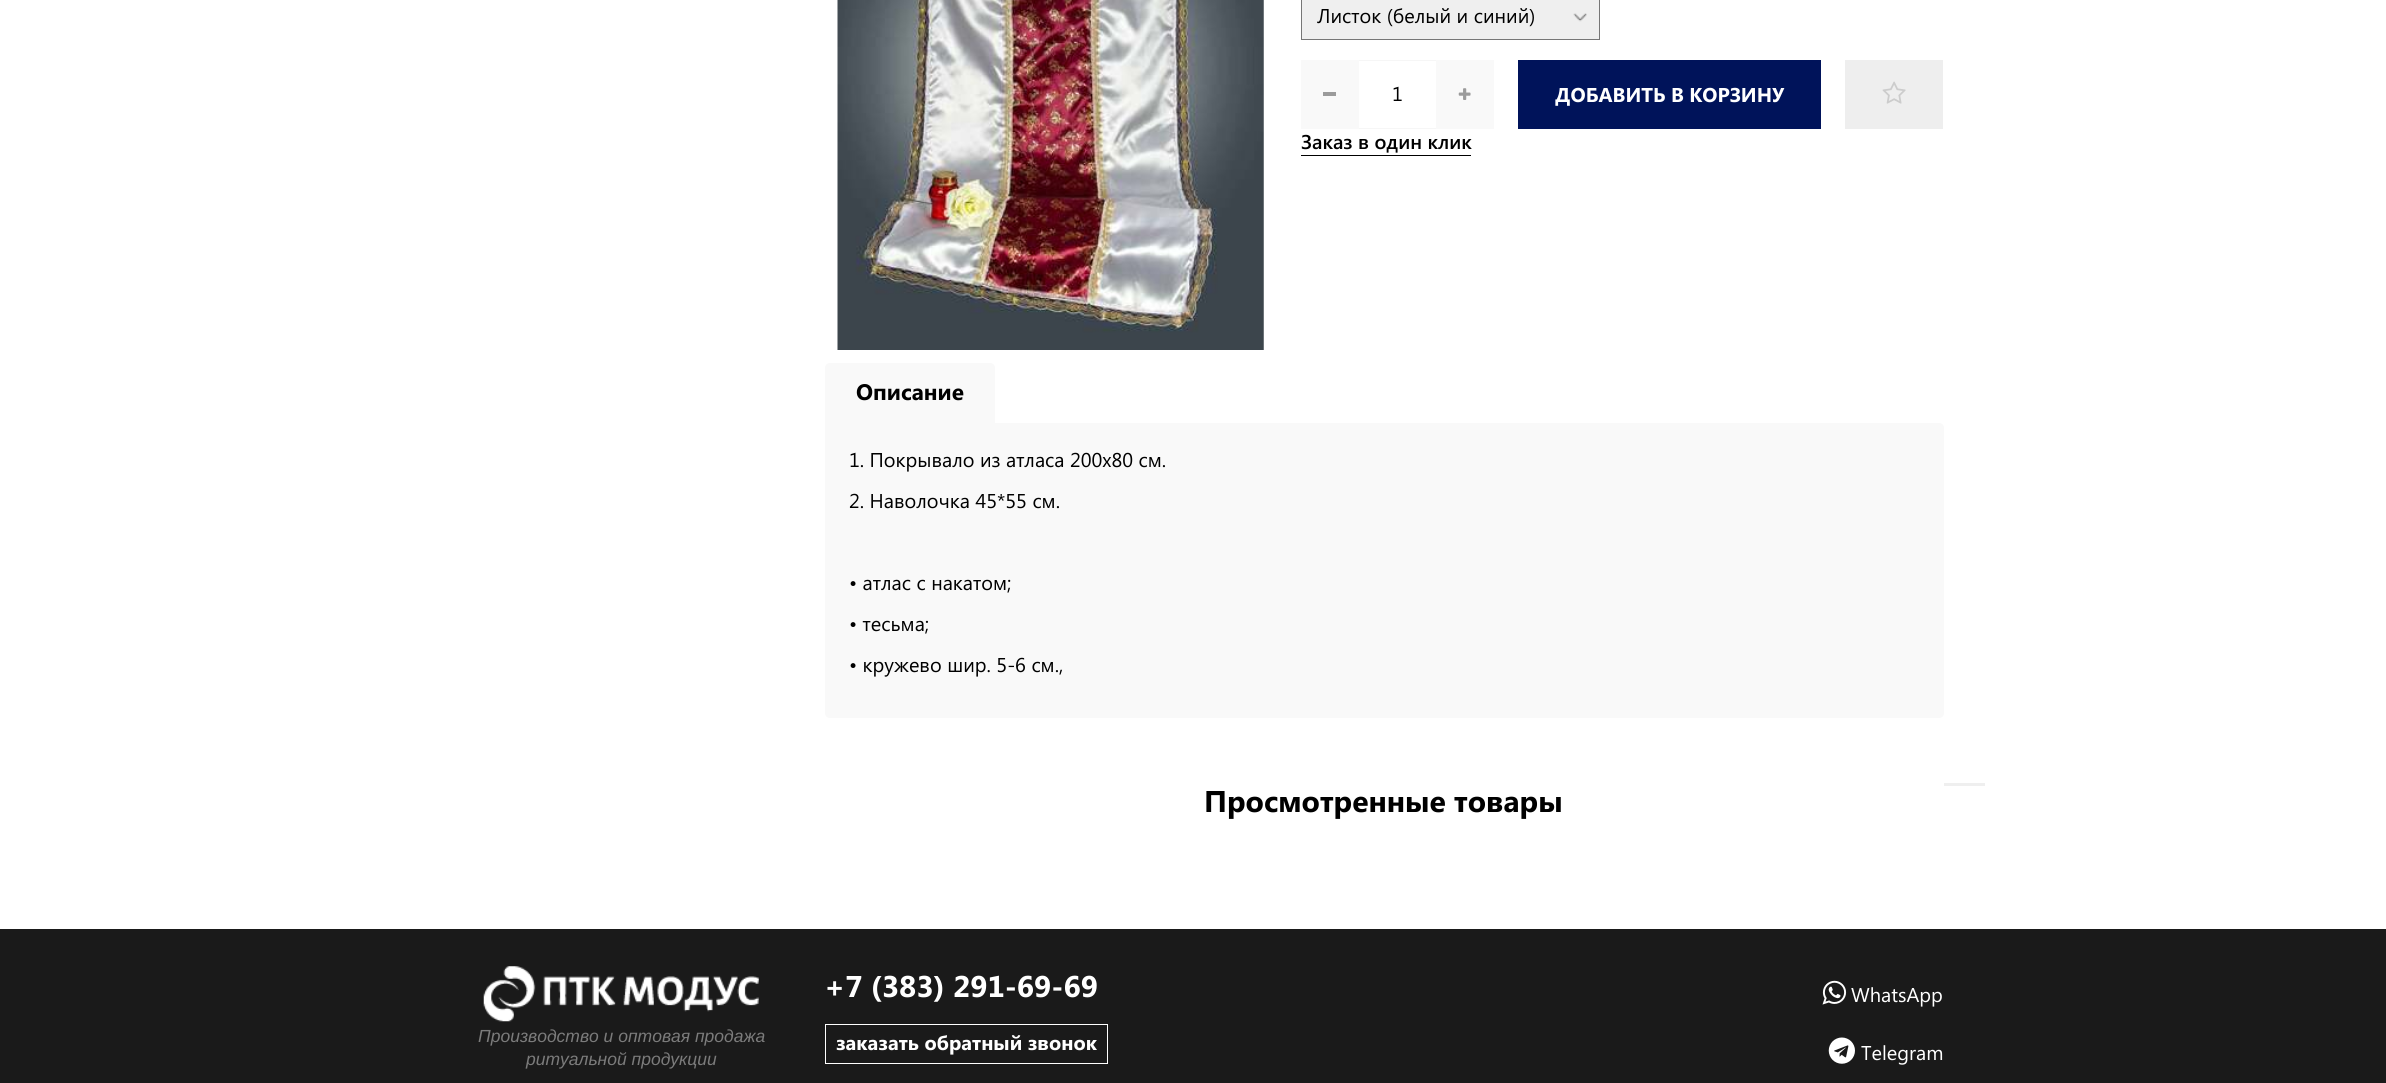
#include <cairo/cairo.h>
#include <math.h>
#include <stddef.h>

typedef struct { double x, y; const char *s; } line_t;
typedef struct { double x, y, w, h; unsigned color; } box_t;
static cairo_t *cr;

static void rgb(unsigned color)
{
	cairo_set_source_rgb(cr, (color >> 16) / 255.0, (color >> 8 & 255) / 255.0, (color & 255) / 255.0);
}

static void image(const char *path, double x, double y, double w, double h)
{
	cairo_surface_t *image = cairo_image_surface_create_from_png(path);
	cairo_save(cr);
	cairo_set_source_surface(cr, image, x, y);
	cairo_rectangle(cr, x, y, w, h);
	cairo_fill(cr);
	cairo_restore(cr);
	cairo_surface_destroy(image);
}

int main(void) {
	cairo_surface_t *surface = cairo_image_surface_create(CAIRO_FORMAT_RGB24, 2386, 1083);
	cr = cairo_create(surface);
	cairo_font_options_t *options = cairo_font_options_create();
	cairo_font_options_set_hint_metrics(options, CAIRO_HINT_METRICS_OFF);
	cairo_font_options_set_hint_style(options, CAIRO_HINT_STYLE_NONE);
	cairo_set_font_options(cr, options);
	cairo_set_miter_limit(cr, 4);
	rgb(0xffffff);
	cairo_paint(cr);
	image("img/1.png", 837, 0, 427, 350);
	rgb(0xefefef);
	cairo_rectangle(cr, 1302, 0, 297, 39);
	cairo_fill(cr);
	image("img/2.png", 1573, 13, 14, 9);
	cairo_rectangle(cr, 1301.5, -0.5, 298, 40);
	rgb(0x767676);
	cairo_set_line_width(cr, 1);
	cairo_stroke(cr);
	{
		static const box_t items[] = {
			{1301, 60, 58, 69, 0xf9f9f9},
			{1323, 92, 13, 4, 0x9b9b9b},
			{1359, 60, 77, 1, 0xf6f6f6},
			{1359, 128, 77, 1, 0xf6f6f6},
			{1436, 60, 58, 69, 0xf9f9f9},
		};
		for (size_t i = 0; i < sizeof items / sizeof *items; i++) {
			rgb(items[i].color);
			cairo_rectangle(cr, items[i].x, items[i].y, items[i].w, items[i].h);
			cairo_fill(cr);
		}
	}
	image("img/3.png", 1458, 88, 13, 12);
	rgb(0x00135a);
	cairo_rectangle(cr, 1518, 60, 303, 69);
	cairo_fill(cr);
	rgb(0xeeeeee);
	cairo_rectangle(cr, 1845, 60, 98, 69);
	cairo_fill(cr);
	image("img/4.png", 1882, 81, 24, 23);
	rgb(0x000000);
	cairo_rectangle(cr, 1301, 155, 170, 1);
	cairo_fill(cr);
	rgb(0xf9f9f9);
	cairo_new_path(cr);
	cairo_move_to(cr, 830, 363);
	cairo_line_to(cr, 990, 363);
	cairo_curve_to(cr, 993, 363, 995, 365, 995, 368);
	cairo_line_to(cr, 995, 423);
	cairo_line_to(cr, 825, 423);
	cairo_line_to(cr, 825, 368);
	cairo_curve_to(cr, 825, 365, 827, 363, 830, 363);
	cairo_close_path(cr);
	cairo_fill(cr);
	cairo_new_path(cr);
	cairo_move_to(cr, 825, 423);
	cairo_line_to(cr, 1939, 423);
	cairo_curve_to(cr, 1942, 423, 1944, 425, 1944, 428);
	cairo_line_to(cr, 1944, 713);
	cairo_curve_to(cr, 1944, 716, 1942, 718, 1939, 718);
	cairo_line_to(cr, 830, 718);
	cairo_curve_to(cr, 827, 718, 825, 716, 825, 713);
	cairo_close_path(cr);
	cairo_fill(cr);
	rgb(0xefefef);
	cairo_rectangle(cr, 1944, 783, 41, 3);
	cairo_fill(cr);
	rgb(0x1a1a1a);
	cairo_rectangle(cr, 0, 929, 2386, 154);
	cairo_fill(cr);
	image("img/5.png", 483, 966, 276, 56);
	cairo_rectangle(cr, 825.5, 1024.5, 282, 39);
	rgb(0xffffff);
	cairo_stroke(cr);
	image("img/6.png", 1822, 980, 25, 25);
	image("img/7.png", 1828, 1037, 27, 27);
	cairo_select_font_face(cr, "Segoe UI", CAIRO_FONT_SLANT_NORMAL, CAIRO_FONT_WEIGHT_NORMAL);
	cairo_set_font_size(cr, 20);
	rgb(0x000000);
	cairo_move_to(cr, 1317, 23);
	cairo_show_text(cr, "Листок (белый и синий)");
	cairo_move_to(cr, 1392, 101);
	cairo_show_text(cr, "1");
	cairo_select_font_face(cr, "Segoe UI", CAIRO_FONT_SLANT_NORMAL, CAIRO_FONT_WEIGHT_BOLD);
	rgb(0xffffff);
	cairo_move_to(cr, 1555, 102);
	cairo_show_text(cr, "ДОБАВИТЬ В КОРЗИНУ");
	cairo_select_font_face(cr, "Segoe UI SemiBold", CAIRO_FONT_SLANT_NORMAL, CAIRO_FONT_WEIGHT_NORMAL);
	rgb(0x000000);
	cairo_move_to(cr, 1301, 149);
	cairo_show_text(cr, "Заказ в один клик");
	cairo_select_font_face(cr, "Segoe UI", CAIRO_FONT_SLANT_NORMAL, CAIRO_FONT_WEIGHT_BOLD);
	cairo_set_font_size(cr, 22.5);
	cairo_move_to(cr, 856, 400);
	cairo_show_text(cr, "Описание");
	cairo_select_font_face(cr, "Segoe UI", CAIRO_FONT_SLANT_NORMAL, CAIRO_FONT_WEIGHT_NORMAL);
	cairo_set_font_size(cr, 20);
	{
		static const line_t items[] = {
			{849, 467, "1. Покрывало из атласа 200х80 см."},
			{849, 508, "2. Наволочка 45*55 см."},
			{849, 590, "• атлас с накатом;"},
			{849, 631, "• тесьма;"},
			{849, 672, "• кружево шир. 5-6 см.,"},
		};
		for (size_t i = 0; i < sizeof items / sizeof *items; i++) {
			cairo_move_to(cr, items[i].x, items[i].y);
			cairo_show_text(cr, items[i].s);
		}
	}
	cairo_select_font_face(cr, "Segoe UI", CAIRO_FONT_SLANT_NORMAL, CAIRO_FONT_WEIGHT_BOLD);
	cairo_set_font_size(cr, 30);
	cairo_move_to(cr, 1204, 812);
	cairo_show_text(cr, "Просмотренные товары");
	cairo_select_font_face(cr, "Liberation Sans", CAIRO_FONT_SLANT_ITALIC, CAIRO_FONT_WEIGHT_NORMAL);
	cairo_set_font_size(cr, 17.5);
	rgb(0x7b7b7b);
	cairo_move_to(cr, 478, 1042);
	cairo_show_text(cr, "Производство и оптовая продажа");
	cairo_move_to(cr, 526, 1065);
	cairo_show_text(cr, "ритуальной продукции");
	cairo_select_font_face(cr, "Segoe UI", CAIRO_FONT_SLANT_NORMAL, CAIRO_FONT_WEIGHT_BOLD);
	cairo_set_font_size(cr, 30);
	rgb(0xffffff);
	cairo_move_to(cr, 824, 997);
	cairo_show_text(cr, "+7 (383) 291-69-69");
	cairo_set_font_size(cr, 20);
	cairo_move_to(cr, 836, 1050);
	cairo_show_text(cr, "заказать обратный звонок");
	cairo_select_font_face(cr, "Segoe UI", CAIRO_FONT_SLANT_NORMAL, CAIRO_FONT_WEIGHT_NORMAL);
	cairo_move_to(cr, 1851, 1002);
	cairo_show_text(cr, "WhatsApp");
	cairo_move_to(cr, 1861, 1060);
	cairo_show_text(cr, "Telegram");
	cairo_surface_write_to_png(surface, "page.png");
	cairo_font_options_destroy(options);
	cairo_destroy(cr);
	cairo_surface_destroy(surface);
	return 0;
}
